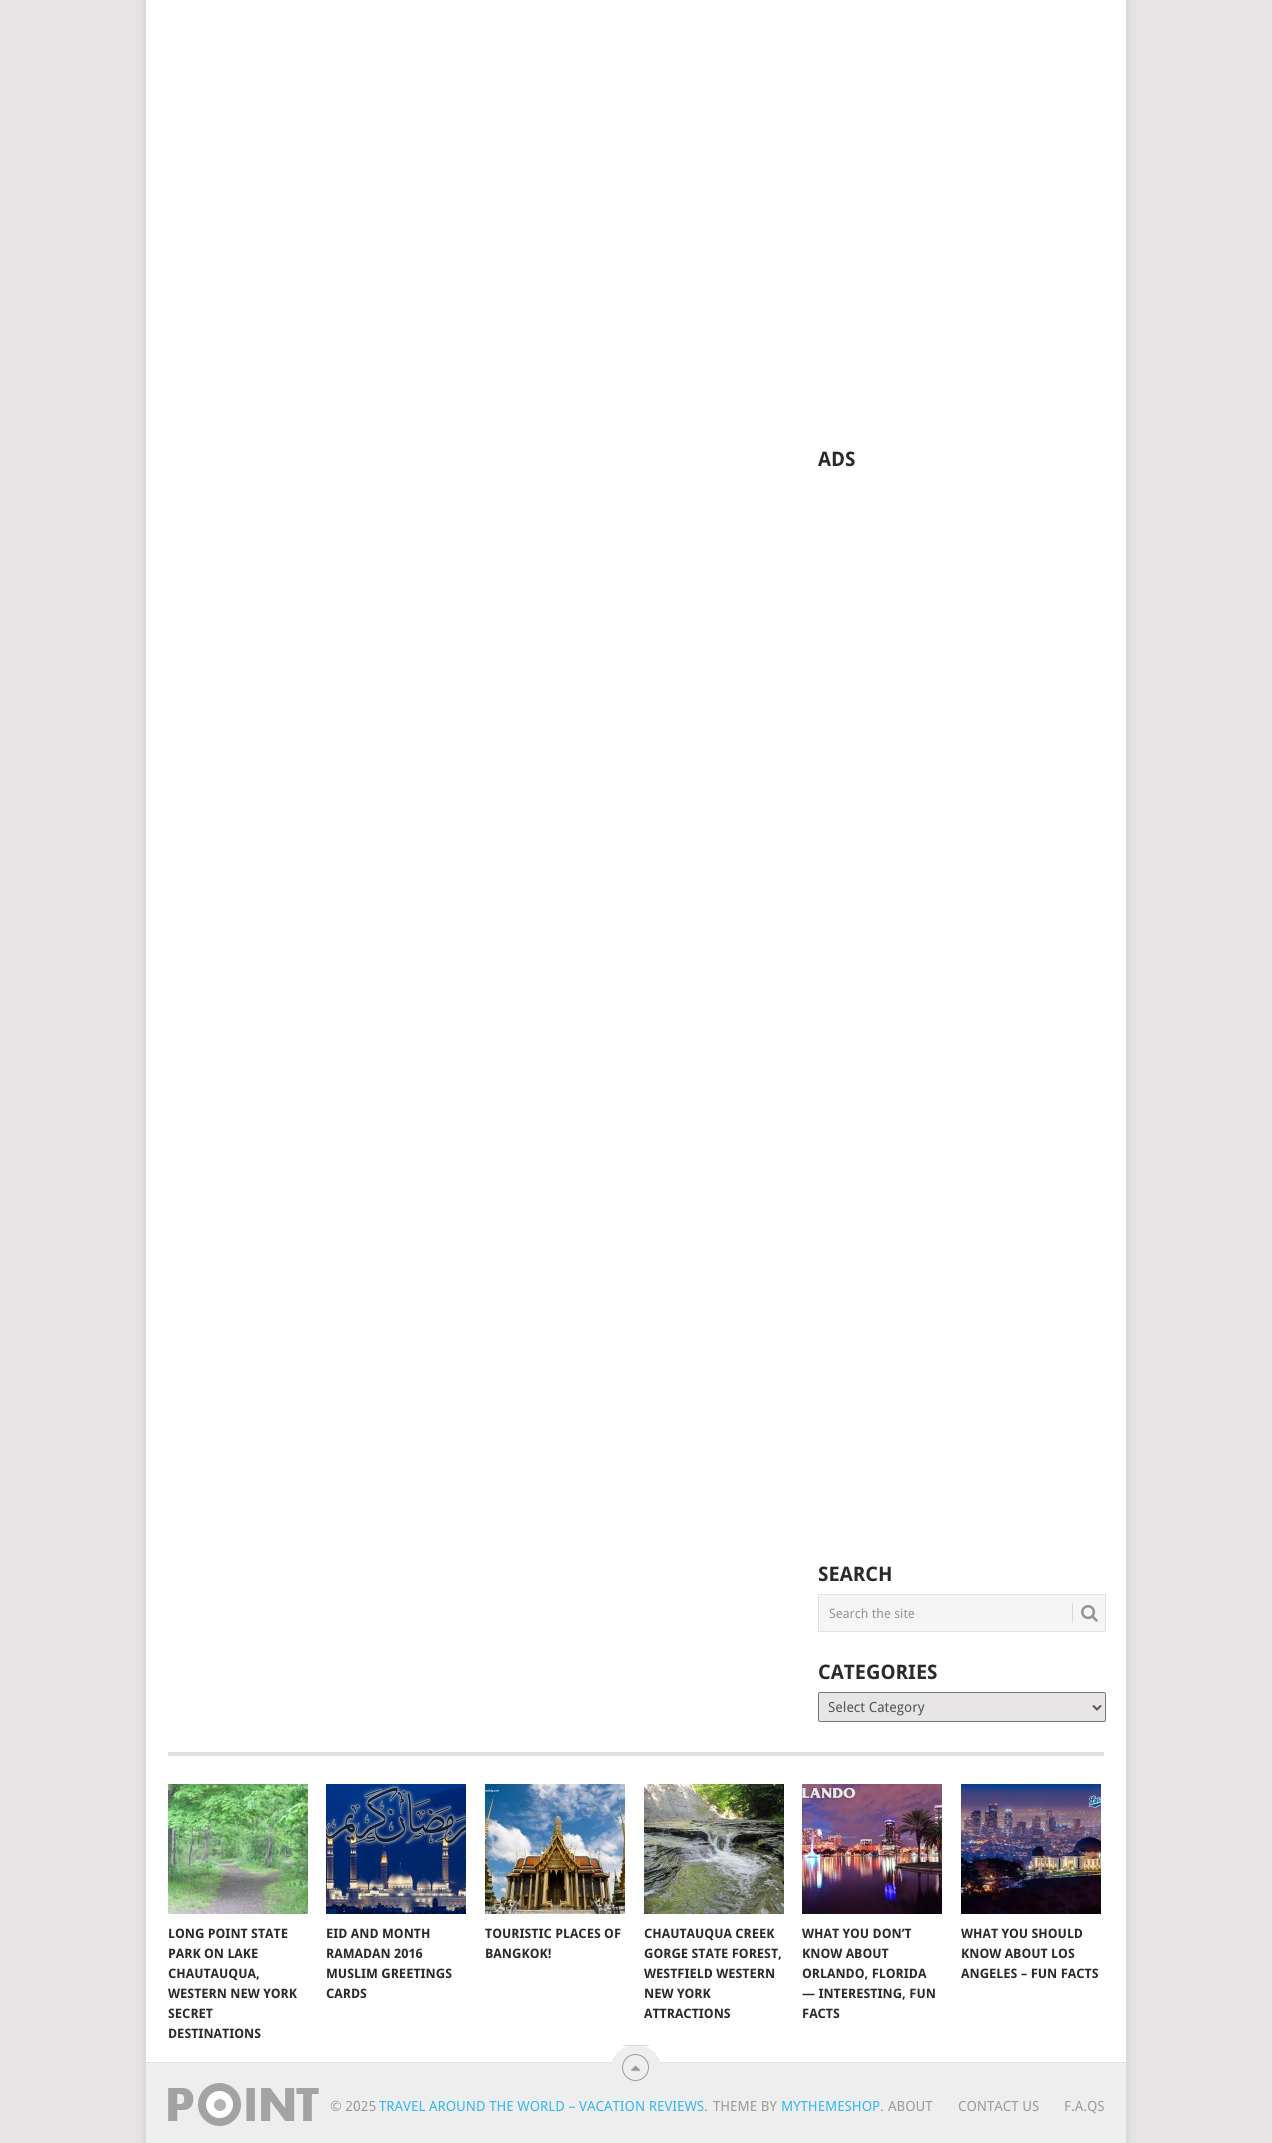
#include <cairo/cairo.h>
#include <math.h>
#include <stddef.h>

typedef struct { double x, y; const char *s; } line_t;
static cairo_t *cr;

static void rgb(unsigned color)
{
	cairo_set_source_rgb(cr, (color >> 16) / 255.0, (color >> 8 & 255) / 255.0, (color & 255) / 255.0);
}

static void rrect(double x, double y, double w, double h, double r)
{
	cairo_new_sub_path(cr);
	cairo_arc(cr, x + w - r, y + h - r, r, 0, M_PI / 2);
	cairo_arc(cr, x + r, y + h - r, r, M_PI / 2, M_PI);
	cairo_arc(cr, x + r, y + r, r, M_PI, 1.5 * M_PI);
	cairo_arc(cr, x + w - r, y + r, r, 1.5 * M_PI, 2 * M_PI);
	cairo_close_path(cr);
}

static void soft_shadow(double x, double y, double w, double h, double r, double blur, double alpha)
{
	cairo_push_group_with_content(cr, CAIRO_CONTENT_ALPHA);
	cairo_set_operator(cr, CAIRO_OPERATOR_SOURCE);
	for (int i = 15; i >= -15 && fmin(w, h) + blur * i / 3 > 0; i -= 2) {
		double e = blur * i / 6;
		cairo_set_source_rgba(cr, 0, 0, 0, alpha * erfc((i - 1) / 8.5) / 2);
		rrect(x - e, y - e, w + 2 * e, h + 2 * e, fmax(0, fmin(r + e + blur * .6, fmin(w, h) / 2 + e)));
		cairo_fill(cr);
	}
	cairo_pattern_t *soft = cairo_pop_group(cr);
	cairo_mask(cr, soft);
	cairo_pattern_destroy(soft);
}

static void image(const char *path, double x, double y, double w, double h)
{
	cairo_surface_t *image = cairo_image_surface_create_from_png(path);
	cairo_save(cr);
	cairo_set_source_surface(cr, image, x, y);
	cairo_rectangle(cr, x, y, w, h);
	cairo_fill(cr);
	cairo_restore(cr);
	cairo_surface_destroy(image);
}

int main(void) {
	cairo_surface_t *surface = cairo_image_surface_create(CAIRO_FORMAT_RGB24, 1272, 2143);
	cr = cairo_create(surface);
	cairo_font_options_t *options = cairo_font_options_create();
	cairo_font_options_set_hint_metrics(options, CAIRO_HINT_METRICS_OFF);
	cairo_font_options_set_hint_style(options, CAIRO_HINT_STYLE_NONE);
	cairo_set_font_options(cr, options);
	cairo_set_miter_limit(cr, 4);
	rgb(0xe7e5e6);
	cairo_paint(cr);
	rgb(0x323232);
	soft_shadow(146, -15, 980, 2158, 0, 5, 0.17);
	rgb(0xffffff);
	cairo_rectangle(cr, 146, 0, 980, 2062);
	cairo_fill(cr);
	rgb(0xf5f5f5);
	cairo_rectangle(cr, 818.5, 1594.5, 287, 37);
	cairo_fill_preserve(cr);
	rgb(0xe2e2e2);
	cairo_set_line_width(cr, 1);
	cairo_stroke(cr);
	rgb(0xd8d8d8);
	cairo_rectangle(cr, 1072, 1603, 1, 20);
	cairo_fill(cr);
	image("img/1.png", 1081, 1605, 17, 17);
	rgb(0xe7e5e6);
	rrect(818.5, 1692.5, 287, 29, 1.5);
	cairo_fill_preserve(cr);
	rgb(0x767676);
	cairo_stroke(cr);
	cairo_new_path(cr);
	cairo_move_to(cr, 1093, 1705.5);
	cairo_line_to(cr, 1097, 1709.5);
	cairo_line_to(cr, 1101, 1705.5);
	rgb(0x555555);
	cairo_set_line_width(cr, 2);
	cairo_stroke(cr);
	rgb(0xe2e2e2);
	cairo_rectangle(cr, 168, 1752, 936, 4);
	cairo_fill(cr);
	image("img/2.png", 168, 1784, 140, 130);
	image("img/3.png", 326, 1784, 140, 130);
	image("img/4.png", 485, 1784, 140, 130);
	image("img/5.png", 644, 1784, 140, 130);
	image("img/6.png", 802, 1784, 140, 130);
	image("img/7.png", 961, 1784, 140, 130);
	rgb(0xeeeeee);
	cairo_rectangle(cr, 146, 2063, 980, 80);
	cairo_fill(cr);
	rgb(0xe2e2e2);
	cairo_rectangle(cr, 146, 2062, 980, 1);
	cairo_fill(cr);
	rgb(0xeeeeee);
	cairo_arc(cr, 636, 2071, 26, 0, 2 * M_PI);
	cairo_fill(cr);
	rgb(0xdddddd);
	cairo_rectangle(cr, 623, 2045, 26, 1);
	cairo_fill(cr);
	cairo_arc(cr, 635.5, 2067.5, 13, 0, 2 * M_PI);
	rgb(0x9b9b9b);
	cairo_set_line_width(cr, 1);
	cairo_stroke(cr);
	image("img/8.png", 631, 2065, 10, 6);
	image("img/9.png", 168, 2083, 151, 43);
	cairo_select_font_face(cr, "Droid Sans", CAIRO_FONT_SLANT_NORMAL, CAIRO_FONT_WEIGHT_BOLD);
	cairo_set_font_size(cr, 20);
	rgb(0x2a2a2a);
	cairo_move_to(cr, 818, 466);
	cairo_show_text(cr, "ADS");
	cairo_move_to(cr, 818, 1581);
	cairo_show_text(cr, "SEARCH");
	cairo_select_font_face(cr, "Droid Sans", CAIRO_FONT_SLANT_NORMAL, CAIRO_FONT_WEIGHT_NORMAL);
	cairo_set_font_size(cr, 13);
	rgb(0x959595);
	cairo_move_to(cr, 829, 1618);
	cairo_show_text(cr, "Search the site");
	cairo_select_font_face(cr, "Droid Sans", CAIRO_FONT_SLANT_NORMAL, CAIRO_FONT_WEIGHT_BOLD);
	cairo_set_font_size(cr, 20);
	rgb(0x2a2a2a);
	cairo_move_to(cr, 818, 1679);
	cairo_show_text(cr, "CATEGORIES");
	cairo_select_font_face(cr, "Droid Sans", CAIRO_FONT_SLANT_NORMAL, CAIRO_FONT_WEIGHT_NORMAL);
	cairo_set_font_size(cr, 14);
	rgb(0x555555);
	cairo_move_to(cr, 828, 1712);
	cairo_show_text(cr, "Select Category");
	cairo_select_font_face(cr, "Droid Sans", CAIRO_FONT_SLANT_NORMAL, CAIRO_FONT_WEIGHT_BOLD);
	cairo_set_font_size(cr, 13);
	rgb(0x2a2a2a);
	{
		static const line_t items[] = {
			{168, 1938, "LONG POINT STATE"},
			{168, 1958, "PARK ON LAKE"},
			{168, 1978, "CHAUTAUQUA,"},
			{168, 1998, "WESTERN NEW YORK"},
			{168, 2018, "SECRET"},
			{168, 2038, "DESTINATIONS"},
			{326, 1938, "EID AND MONTH"},
			{326, 1958, "RAMADAN 2016"},
			{326, 1978, "MUSLIM GREETINGS"},
			{326, 1998, "CARDS"},
			{485, 1938, "TOURISTIC PLACES OF"},
			{485, 1958, "BANGKOK!"},
			{644, 1938, "CHAUTAUQUA CREEK"},
			{644, 1958, "GORGE STATE FOREST,"},
			{644, 1978, "WESTFIELD WESTERN"},
			{644, 1998, "NEW YORK"},
			{644, 2018, "ATTRACTIONS"},
			{802, 1938, "WHAT YOU DON’T"},
			{802, 1958, "KNOW ABOUT"},
			{802, 1978, "ORLANDO, FLORIDA"},
			{802, 1998, "— INTERESTING, FUN"},
			{802, 2018, "FACTS"},
			{961, 1938, "WHAT YOU SHOULD"},
			{961, 1958, "KNOW ABOUT LOS"},
			{961, 1978, "ANGELES – FUN FACTS"},
		};
		for (size_t i = 0; i < sizeof items / sizeof *items; i++) {
			cairo_move_to(cr, items[i].x, items[i].y);
			cairo_show_text(cr, items[i].s);
		}
	}
	cairo_select_font_face(cr, "Droid Sans", CAIRO_FONT_SLANT_NORMAL, CAIRO_FONT_WEIGHT_NORMAL);
	cairo_set_font_size(cr, 14);
	rgb(0x9b9b9b);
	cairo_move_to(cr, 330, 2111);
	cairo_show_text(cr, "© 2025");
	rgb(0x38b7ee);
	cairo_move_to(cr, 379, 2111);
	cairo_show_text(cr, "TRAVEL AROUND THE WORLD – VACATION REVIEWS");
	rgb(0x9b9b9b);
	cairo_move_to(cr, 704, 2111);
	cairo_show_text(cr, ".");
	cairo_move_to(cr, 713, 2111);
	cairo_show_text(cr, "THEME BY");
	rgb(0x38b7ee);
	cairo_move_to(cr, 781, 2111);
	cairo_show_text(cr, "MYTHEMESHOP");
	rgb(0x9b9b9b);
	{
		static const line_t items[] = {
			{880, 2111, "."},
			{888, 2111, "ABOUT"},
			{958, 2111, "CONTACT US"},
			{1064, 2111, "F.A.QS"},
		};
		for (size_t i = 0; i < sizeof items / sizeof *items; i++) {
			cairo_move_to(cr, items[i].x, items[i].y);
			cairo_show_text(cr, items[i].s);
		}
	}
	cairo_surface_write_to_png(surface, "page.png");
	cairo_font_options_destroy(options);
	cairo_destroy(cr);
	cairo_surface_destroy(surface);
	return 0;
}
